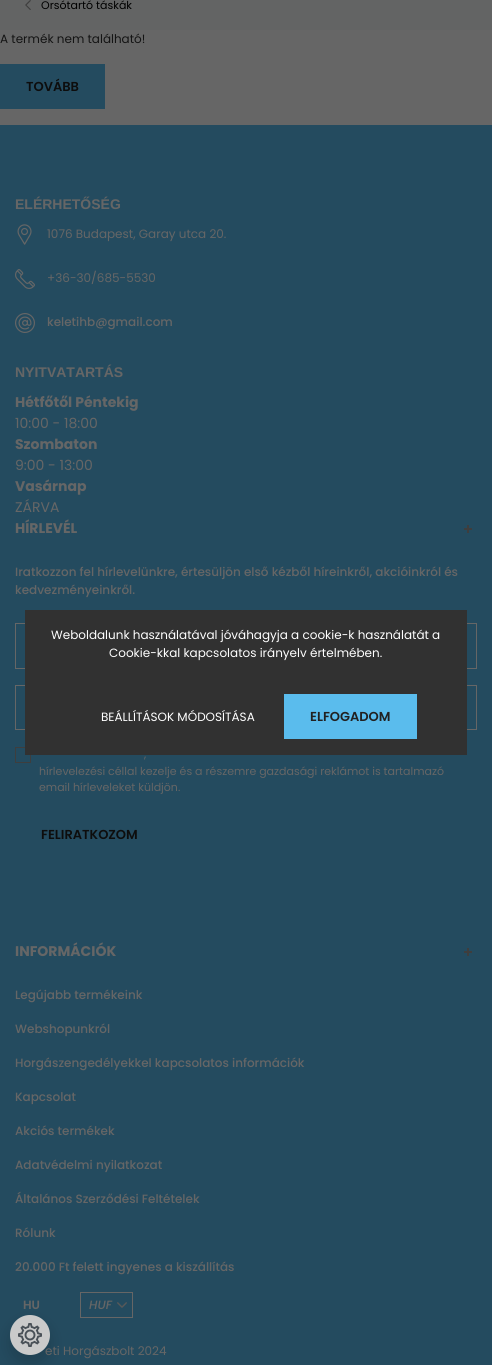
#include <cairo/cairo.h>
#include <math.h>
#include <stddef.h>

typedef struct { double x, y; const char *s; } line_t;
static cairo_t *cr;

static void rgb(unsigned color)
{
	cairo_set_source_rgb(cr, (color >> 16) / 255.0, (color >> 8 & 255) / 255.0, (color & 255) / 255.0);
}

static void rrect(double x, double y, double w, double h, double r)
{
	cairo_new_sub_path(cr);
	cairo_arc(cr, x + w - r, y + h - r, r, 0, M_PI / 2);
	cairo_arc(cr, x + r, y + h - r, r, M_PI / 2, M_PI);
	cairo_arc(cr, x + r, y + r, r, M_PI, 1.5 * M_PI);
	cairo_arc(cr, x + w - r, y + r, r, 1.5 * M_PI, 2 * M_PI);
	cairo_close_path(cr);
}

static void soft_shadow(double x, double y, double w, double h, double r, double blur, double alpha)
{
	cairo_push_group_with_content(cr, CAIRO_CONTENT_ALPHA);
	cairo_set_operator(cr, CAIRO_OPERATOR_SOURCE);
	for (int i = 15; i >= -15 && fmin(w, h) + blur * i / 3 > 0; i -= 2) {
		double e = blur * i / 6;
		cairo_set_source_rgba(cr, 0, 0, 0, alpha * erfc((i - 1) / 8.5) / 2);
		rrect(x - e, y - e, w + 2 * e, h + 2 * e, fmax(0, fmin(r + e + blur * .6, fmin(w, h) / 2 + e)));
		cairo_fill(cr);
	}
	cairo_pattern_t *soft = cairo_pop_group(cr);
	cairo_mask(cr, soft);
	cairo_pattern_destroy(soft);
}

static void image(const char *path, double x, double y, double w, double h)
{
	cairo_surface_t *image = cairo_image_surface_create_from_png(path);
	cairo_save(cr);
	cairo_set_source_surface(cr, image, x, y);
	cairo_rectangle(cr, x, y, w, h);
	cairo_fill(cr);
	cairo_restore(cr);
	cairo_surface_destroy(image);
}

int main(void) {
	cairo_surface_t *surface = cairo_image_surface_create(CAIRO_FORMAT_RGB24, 492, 1365);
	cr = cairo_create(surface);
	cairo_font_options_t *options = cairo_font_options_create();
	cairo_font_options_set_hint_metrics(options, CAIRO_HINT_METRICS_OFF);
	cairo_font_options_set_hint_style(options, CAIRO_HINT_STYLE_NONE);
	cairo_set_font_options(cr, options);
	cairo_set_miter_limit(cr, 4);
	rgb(0x666666);
	cairo_paint(cr);
	rgb(0x636464);
	cairo_rectangle(cr, 0, 0, 492, 30);
	cairo_fill(cr);
	image("img/1.png", 25, 0, 6, 10);
	rgb(0x244b5f);
	cairo_rectangle(cr, 0, 64, 105, 45);
	cairo_fill(cr);
	cairo_rectangle(cr, 0, 125, 492, 1240);
	cairo_fill(cr);
	image("img/2.png", 17, 224, 15, 21);
	image("img/3.png", 15, 269, 20, 20);
	image("img/4.png", 15, 313, 20, 20);
	rgb(0x3e3e3e);
	cairo_rectangle(cr, 467, 525, 2, 8);
	cairo_fill(cr);
	cairo_rectangle(cr, 464, 528, 8, 2);
	cairo_fill(cr);
	cairo_rectangle(cr, 15.5, 623.5, 461, 45);
	rgb(0x666666);
	cairo_set_line_width(cr, 1);
	cairo_stroke(cr);
	cairo_rectangle(cr, 15.5, 685.5, 461, 44);
	cairo_stroke(cr);
	cairo_rectangle(cr, 15.5, 747.5, 15, 15);
	rgb(0x3e3e3e);
	cairo_stroke(cr);
	cairo_rectangle(cr, 467, 948, 2, 8);
	cairo_fill(cr);
	cairo_rectangle(cr, 464, 951, 8, 2);
	cairo_fill(cr);
	image("img/5.png", 117, 1302, 10, 6);
	cairo_rectangle(cr, 80.5, 1292.5, 52, 25);
	rgb(0x666666);
	cairo_stroke(cr);
	rgb(0x313131);
	cairo_rectangle(cr, 25, 610, 442, 145);
	cairo_fill(cr);
	rgb(0x5abced);
	cairo_rectangle(cr, 284, 694, 133, 45);
	cairo_fill(cr);
	rgb(0x000000);
	soft_shadow(10, 1323, 40, 40, 20, 8, 0.15);
	cairo_select_font_face(cr, "Poppins", CAIRO_FONT_SLANT_NORMAL, CAIRO_FONT_WEIGHT_NORMAL);
	cairo_set_font_size(cr, 11);
	rgb(0x000000);
	cairo_move_to(cr, 41, 9);
	cairo_show_text(cr, "Orsótartó táskák");
	cairo_set_font_size(cr, 12);
	rgb(0x141414);
	cairo_move_to(cr, 0, 43);
	cairo_show_text(cr, "A termék nem található!");
	cairo_select_font_face(cr, "Poppins SemiBold", CAIRO_FONT_SLANT_NORMAL, CAIRO_FONT_WEIGHT_NORMAL);
	cairo_set_font_size(cr, 13);
	rgb(0x0d0d0d);
	cairo_move_to(cr, 26, 91);
	cairo_show_text(cr, "TOVÁBB");
	cairo_select_font_face(cr, "Liberation Sans", CAIRO_FONT_SLANT_NORMAL, CAIRO_FONT_WEIGHT_BOLD);
	cairo_set_font_size(cr, 14);
	rgb(0x666666);
	cairo_move_to(cr, 15, 209);
	cairo_show_text(cr, "ELÉRHETŐSÉG");
	cairo_select_font_face(cr, "Poppins", CAIRO_FONT_SLANT_NORMAL, CAIRO_FONT_WEIGHT_NORMAL);
	cairo_set_font_size(cr, 12);
	cairo_move_to(cr, 47, 238);
	cairo_show_text(cr, "1076 Budapest, Garay utca 20.");
	cairo_move_to(cr, 47, 282);
	cairo_show_text(cr, "+36-30/685-5530");
	cairo_select_font_face(cr, "Poppins Medium", CAIRO_FONT_SLANT_NORMAL, CAIRO_FONT_WEIGHT_NORMAL);
	cairo_move_to(cr, 47, 326);
	cairo_show_text(cr, "keletihb@gmail.com");
	cairo_select_font_face(cr, "Liberation Sans", CAIRO_FONT_SLANT_NORMAL, CAIRO_FONT_WEIGHT_BOLD);
	cairo_set_font_size(cr, 14);
	cairo_move_to(cr, 15, 377);
	cairo_show_text(cr, "NYITVATARTÁS");
	cairo_select_font_face(cr, "Poppins", CAIRO_FONT_SLANT_NORMAL, CAIRO_FONT_WEIGHT_BOLD);
	cairo_move_to(cr, 15, 407);
	cairo_show_text(cr, "Hétfőtől Péntekig");
	cairo_select_font_face(cr, "Poppins", CAIRO_FONT_SLANT_NORMAL, CAIRO_FONT_WEIGHT_NORMAL);
	cairo_move_to(cr, 15, 428);
	cairo_show_text(cr, "10:00 - 18:00");
	cairo_select_font_face(cr, "Poppins", CAIRO_FONT_SLANT_NORMAL, CAIRO_FONT_WEIGHT_BOLD);
	cairo_move_to(cr, 15, 449);
	cairo_show_text(cr, "Szombaton");
	cairo_select_font_face(cr, "Poppins", CAIRO_FONT_SLANT_NORMAL, CAIRO_FONT_WEIGHT_NORMAL);
	cairo_move_to(cr, 15, 470);
	cairo_show_text(cr, "9:00 - 13:00");
	cairo_select_font_face(cr, "Poppins", CAIRO_FONT_SLANT_NORMAL, CAIRO_FONT_WEIGHT_BOLD);
	cairo_move_to(cr, 15, 491);
	cairo_show_text(cr, "Vasárnap");
	cairo_select_font_face(cr, "Poppins", CAIRO_FONT_SLANT_NORMAL, CAIRO_FONT_WEIGHT_NORMAL);
	cairo_move_to(cr, 15, 512);
	cairo_show_text(cr, "ZÁRVA");
	cairo_select_font_face(cr, "Poppins", CAIRO_FONT_SLANT_NORMAL, CAIRO_FONT_WEIGHT_BOLD);
	cairo_move_to(cr, 15, 533);
	cairo_show_text(cr, "HÍRLEVÉL");
	cairo_select_font_face(cr, "Poppins Medium", CAIRO_FONT_SLANT_NORMAL, CAIRO_FONT_WEIGHT_NORMAL);
	cairo_set_font_size(cr, 12);
	cairo_move_to(cr, 15, 576);
	cairo_show_text(cr, "Iratkozzon fel hírlevelünkre, értesüljön első kézből híreinkről, akcióinkról és");
	cairo_move_to(cr, 15, 594);
	cairo_show_text(cr, "kedvezményeinkről.");
	cairo_select_font_face(cr, "Poppins", CAIRO_FONT_SLANT_NORMAL, CAIRO_FONT_WEIGHT_NORMAL);
	cairo_set_font_size(cr, 11);
	{
		static const line_t items[] = {
			{144, 758, ","},
			{39, 775, "hírlevelezési céllal kezelje és a részemre gazdasági reklámot is tartalmazó"},
			{39, 791, "email hírleveleket küldjön."},
		};
		for (size_t i = 0; i < sizeof items / sizeof *items; i++) {
			cairo_move_to(cr, items[i].x, items[i].y);
			cairo_show_text(cr, items[i].s);
		}
	}
	cairo_select_font_face(cr, "Poppins SemiBold", CAIRO_FONT_SLANT_NORMAL, CAIRO_FONT_WEIGHT_NORMAL);
	cairo_set_font_size(cr, 13);
	rgb(0x0d0d0d);
	cairo_move_to(cr, 41, 839);
	cairo_show_text(cr, "FELIRATKOZOM");
	cairo_select_font_face(cr, "Poppins", CAIRO_FONT_SLANT_NORMAL, CAIRO_FONT_WEIGHT_BOLD);
	cairo_set_font_size(cr, 14);
	rgb(0x666666);
	cairo_move_to(cr, 15, 956);
	cairo_show_text(cr, "INFORMÁCIÓK");
	cairo_select_font_face(cr, "Poppins Medium", CAIRO_FONT_SLANT_NORMAL, CAIRO_FONT_WEIGHT_NORMAL);
	cairo_set_font_size(cr, 12);
	{
		static const line_t items[] = {
			{15, 999, "Legújabb termékeink"},
			{15, 1033, "Webshopunkról"},
			{15, 1067, "Horgászengedélyekkel kapcsolatos információk"},
			{15, 1101, "Kapcsolat"},
			{15, 1135, "Akciós termékek"},
			{15, 1169, "Adatvédelmi nyilatkozat"},
			{15, 1203, "Általános Szerződési Feltételek"},
			{15, 1237, "Rólunk"},
			{15, 1271, "20.000 Ft felett ingyenes a kiszállítás"},
		};
		for (size_t i = 0; i < sizeof items / sizeof *items; i++) {
			cairo_move_to(cr, items[i].x, items[i].y);
			cairo_show_text(cr, items[i].s);
		}
	}
	cairo_select_font_face(cr, "Poppins SemiBold", CAIRO_FONT_SLANT_NORMAL, CAIRO_FONT_WEIGHT_NORMAL);
	cairo_move_to(cr, 23, 1309);
	cairo_show_text(cr, "HU");
	cairo_select_font_face(cr, "Poppins Medium", CAIRO_FONT_SLANT_ITALIC, CAIRO_FONT_WEIGHT_NORMAL);
	cairo_move_to(cr, 89, 1309);
	cairo_show_text(cr, "HUF");
	cairo_select_font_face(cr, "Poppins", CAIRO_FONT_SLANT_NORMAL, CAIRO_FONT_WEIGHT_NORMAL);
	cairo_move_to(cr, 45, 1355);
	cairo_show_text(cr, "eti Horgászbolt 2024");
	rgb(0xffffff);
	{
		static const line_t items[] = {
			{51, 639, "Weboldalunk használatával jóváhagyja a cookie-k használatát a"},
			{109, 657, "Cookie-kkal kapcsolatos irányelv értelmében."},
			{101, 721, "BEÁLLÍTÁSOK MÓDOSÍTÁSA"},
		};
		for (size_t i = 0; i < sizeof items / sizeof *items; i++) {
			cairo_move_to(cr, items[i].x, items[i].y);
			cairo_show_text(cr, items[i].s);
		}
	}
	cairo_select_font_face(cr, "Poppins SemiBold", CAIRO_FONT_SLANT_NORMAL, CAIRO_FONT_WEIGHT_NORMAL);
	cairo_set_font_size(cr, 13);
	rgb(0x212121);
	cairo_move_to(cr, 310, 721);
	cairo_show_text(cr, "ELFOGADOM");
	rgb(0xcacaca);
	cairo_new_path(cr);
	cairo_arc(cr, 30, 1335, 20, 0, 2 * M_PI);
	cairo_fill(cr);
	image("img/6.png", 18, 1323, 24, 24);
	cairo_surface_write_to_png(surface, "page.png");
	cairo_font_options_destroy(options);
	cairo_destroy(cr);
	cairo_surface_destroy(surface);
	return 0;
}
